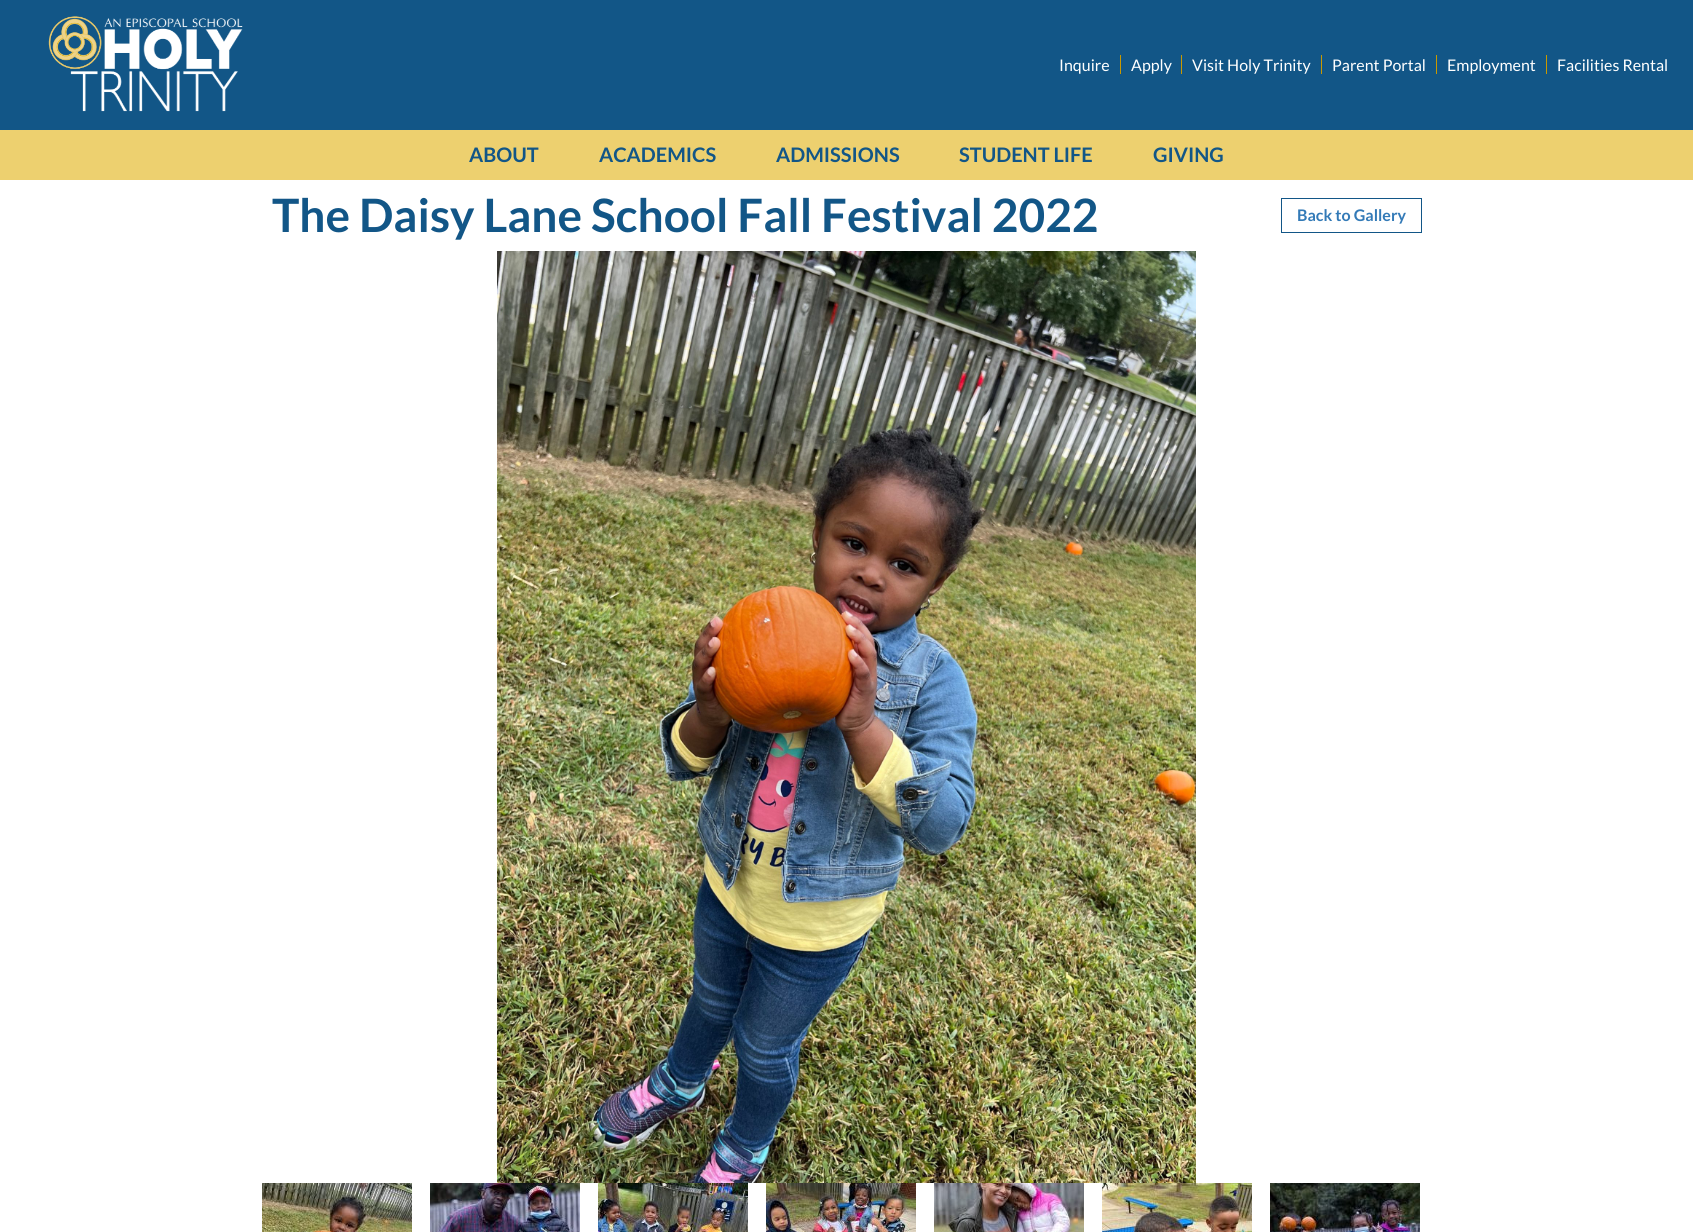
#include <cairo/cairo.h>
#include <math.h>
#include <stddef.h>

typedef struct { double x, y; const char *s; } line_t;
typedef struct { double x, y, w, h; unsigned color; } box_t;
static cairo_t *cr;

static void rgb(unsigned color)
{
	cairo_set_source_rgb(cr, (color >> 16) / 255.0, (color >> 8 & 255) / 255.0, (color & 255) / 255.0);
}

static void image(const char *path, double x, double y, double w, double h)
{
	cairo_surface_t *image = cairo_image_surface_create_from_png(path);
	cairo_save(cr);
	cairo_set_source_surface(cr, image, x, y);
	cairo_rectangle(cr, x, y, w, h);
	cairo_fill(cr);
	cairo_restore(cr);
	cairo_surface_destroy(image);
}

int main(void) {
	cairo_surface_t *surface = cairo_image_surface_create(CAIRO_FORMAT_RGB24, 1693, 1232);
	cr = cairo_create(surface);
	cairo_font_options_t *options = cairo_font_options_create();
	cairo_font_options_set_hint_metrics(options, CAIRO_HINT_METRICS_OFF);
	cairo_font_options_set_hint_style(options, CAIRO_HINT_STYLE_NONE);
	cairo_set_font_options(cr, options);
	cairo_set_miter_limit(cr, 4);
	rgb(0xffffff);
	cairo_paint(cr);
	rgb(0x125687);
	cairo_rectangle(cr, 0, 0, 1693, 130);
	cairo_fill(cr);
	image("img/1.png", 48, 16, 195, 96);
	{
		static const box_t items[] = {
			{1120, 55, 1, 19, 0xc99900},
			{1181, 55, 1, 19, 0xc99900},
			{1321, 55, 1, 19, 0xc99900},
			{1436, 55, 1, 19, 0xc99900},
			{1546, 55, 1, 19, 0xc99900},
			{0, 130, 1693, 50, 0xedd06f},
		};
		for (size_t i = 0; i < sizeof items / sizeof *items; i++) {
			rgb(items[i].color);
			cairo_rectangle(cr, items[i].x, items[i].y, items[i].w, items[i].h);
			cairo_fill(cr);
		}
	}
	cairo_rectangle(cr, 1281.5, 198.5, 140, 34);
	rgb(0x125687);
	cairo_set_line_width(cr, 1);
	cairo_stroke(cr);
	image("img/2.png", 497, 251, 699, 932);
	image("img/3.png", 262, 1183, 150, 49);
	image("img/4.png", 430, 1183, 150, 49);
	image("img/5.png", 598, 1183, 150, 49);
	image("img/6.png", 766, 1183, 150, 49);
	image("img/7.png", 934, 1183, 150, 49);
	image("img/8.png", 1102, 1183, 150, 49);
	image("img/9.png", 1270, 1183, 150, 49);
	cairo_select_font_face(cr, "Lato", CAIRO_FONT_SLANT_NORMAL, CAIRO_FONT_WEIGHT_NORMAL);
	cairo_set_font_size(cr, 16);
	rgb(0xffffff);
	{
		static const line_t items[] = {
			{1059, 71, "Inquire"},
			{1131, 71, "Apply"},
			{1192, 71, "Visit Holy Trinity"},
			{1332, 71, "Parent Portal"},
			{1447, 71, "Employment"},
			{1557, 71, "Facilities Rental"},
		};
		for (size_t i = 0; i < sizeof items / sizeof *items; i++) {
			cairo_move_to(cr, items[i].x, items[i].y);
			cairo_show_text(cr, items[i].s);
		}
	}
	cairo_select_font_face(cr, "Lato", CAIRO_FONT_SLANT_NORMAL, CAIRO_FONT_WEIGHT_BOLD);
	cairo_set_font_size(cr, 20);
	rgb(0x125687);
	{
		static const line_t items[] = {
			{469, 162, "ABOUT"},
			{599, 162, "ACADEMICS"},
			{776, 162, "ADMISSIONS"},
			{959, 162, "STUDENT LIFE"},
			{1153, 162, "GIVING"},
		};
		for (size_t i = 0; i < sizeof items / sizeof *items; i++) {
			cairo_move_to(cr, items[i].x, items[i].y);
			cairo_show_text(cr, items[i].s);
		}
	}
	cairo_set_font_size(cr, 46);
	cairo_move_to(cr, 272, 232);
	cairo_show_text(cr, "The Daisy Lane School Fall Festival 2022");
	cairo_set_font_size(cr, 16);
	rgb(0x337ab7);
	cairo_move_to(cr, 1297, 221);
	cairo_show_text(cr, "Back to Gallery");
	cairo_surface_write_to_png(surface, "page.png");
	cairo_font_options_destroy(options);
	cairo_destroy(cr);
	cairo_surface_destroy(surface);
	return 0;
}
